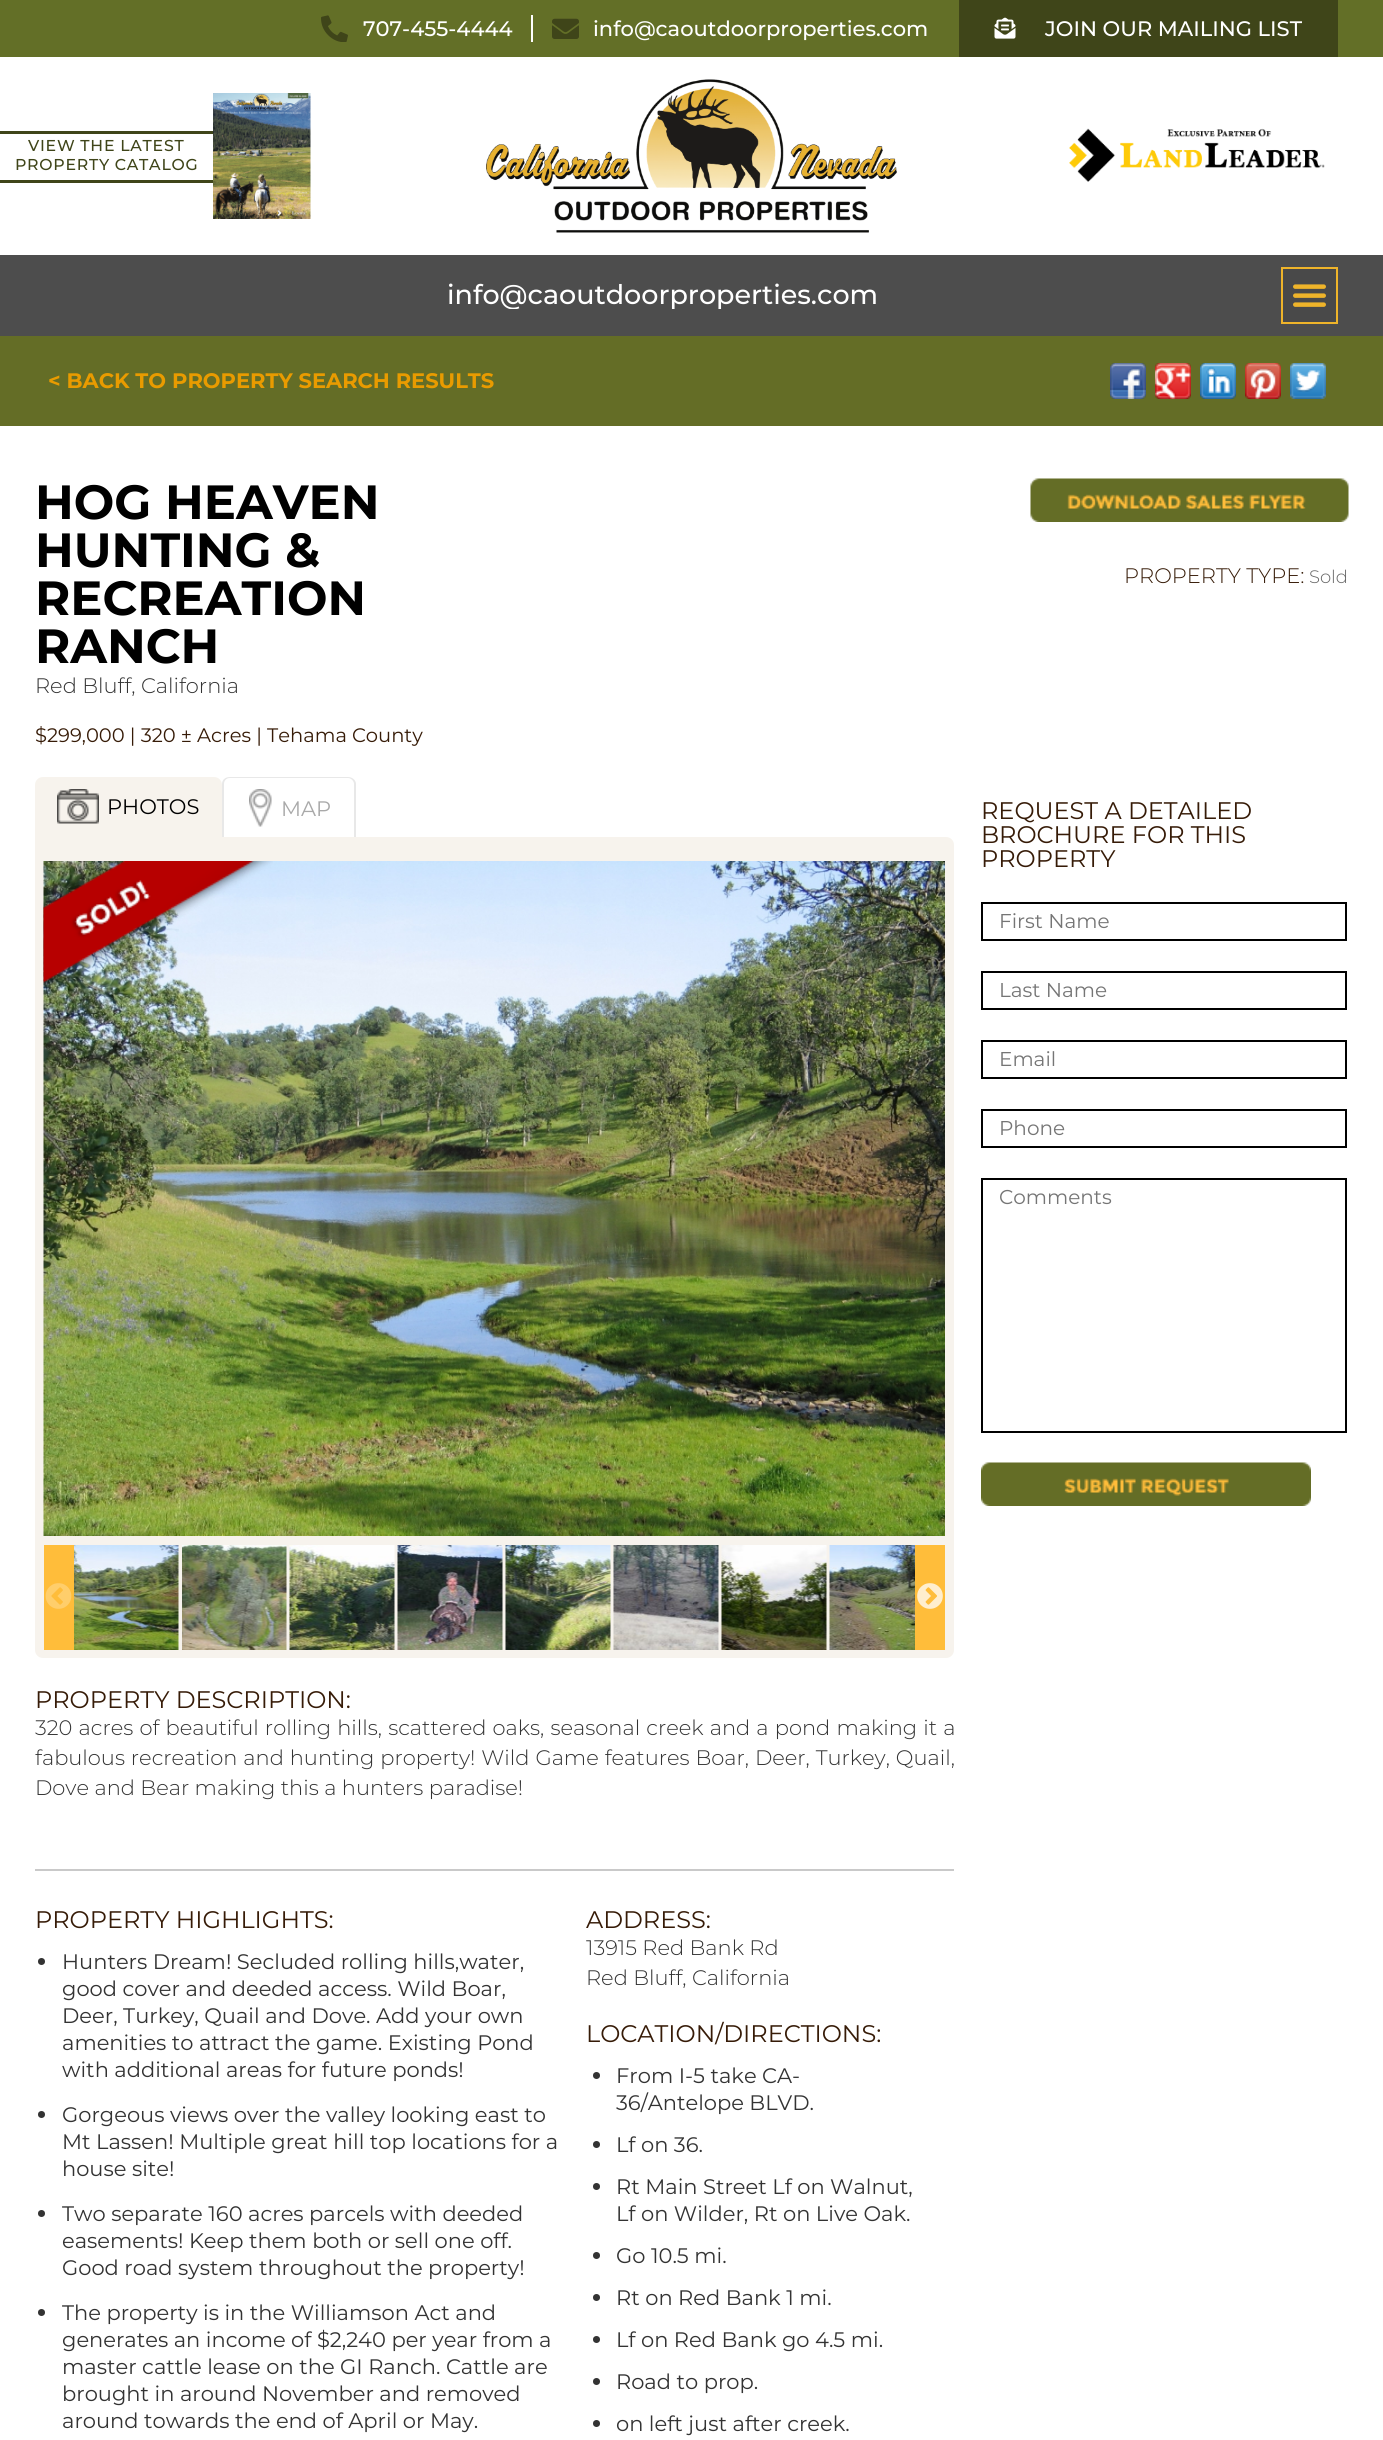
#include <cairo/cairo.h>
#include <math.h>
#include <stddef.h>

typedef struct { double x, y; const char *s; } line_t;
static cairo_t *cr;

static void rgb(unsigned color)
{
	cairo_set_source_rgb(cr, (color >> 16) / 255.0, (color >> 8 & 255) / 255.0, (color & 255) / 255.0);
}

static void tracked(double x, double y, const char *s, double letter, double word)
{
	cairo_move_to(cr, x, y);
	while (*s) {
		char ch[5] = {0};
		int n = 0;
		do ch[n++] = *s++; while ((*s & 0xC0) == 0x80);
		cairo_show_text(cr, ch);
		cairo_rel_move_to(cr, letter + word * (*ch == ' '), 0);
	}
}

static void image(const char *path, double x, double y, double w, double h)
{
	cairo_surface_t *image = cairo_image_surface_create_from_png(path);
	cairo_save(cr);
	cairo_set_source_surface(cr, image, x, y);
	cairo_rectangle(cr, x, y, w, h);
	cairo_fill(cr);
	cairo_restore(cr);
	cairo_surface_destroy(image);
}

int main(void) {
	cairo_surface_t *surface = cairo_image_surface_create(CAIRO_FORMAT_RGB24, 1383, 2440);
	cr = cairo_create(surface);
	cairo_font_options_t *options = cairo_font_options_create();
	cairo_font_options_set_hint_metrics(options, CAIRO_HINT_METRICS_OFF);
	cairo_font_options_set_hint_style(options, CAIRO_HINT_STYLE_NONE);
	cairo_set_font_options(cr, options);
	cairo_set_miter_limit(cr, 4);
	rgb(0xffffff);
	cairo_paint(cr);
	rgb(0x636f27);
	cairo_rectangle(cr, 0, 0, 1383, 57);
	cairo_fill(cr);
	image("img/1.png", 321, 15, 27, 27);
	rgb(0xffffff);
	cairo_rectangle(cr, 531, 15, 2, 27);
	cairo_fill(cr);
	image("img/2.png", 552, 18, 27, 21);
	rgb(0x3f4519);
	cairo_rectangle(cr, 959, 0, 379, 57);
	cairo_fill(cr);
	image("img/3.png", 994, 17, 22, 22);
	cairo_rectangle(cr, 0, 131, 213, 3);
	cairo_fill(cr);
	cairo_rectangle(cr, 0, 180, 213, 3);
	cairo_fill(cr);
	image("img/4.png", 213, 93, 98, 126);
	image("img/5.png", 486, 79, 411, 154);
	image("img/6.png", 1069, 128, 256, 54);
	rgb(0x4d4d4d);
	cairo_rectangle(cr, 0, 255, 1383, 81);
	cairo_fill(cr);
	rgb(0x494949);
	cairo_rectangle(cr, 1282, 268, 55, 55);
	cairo_fill_preserve(cr);
	rgb(0xefb42a);
	cairo_stroke(cr);
	image("img/7.png", 1293, 284, 33, 23);
	rgb(0x646d26);
	cairo_rectangle(cr, 0, 336, 1383, 90);
	cairo_fill(cr);
	image("img/8.png", 1110, 363, 36, 36);
	image("img/9.png", 1155, 363, 36, 36);
	image("img/10.png", 1200, 363, 36, 36);
	image("img/11.png", 1245, 363, 36, 36);
	image("img/12.png", 1290, 363, 36, 36);
	image("img/13.png", 1030, 478, 319, 44);
	rgb(0xe8e8e8);
	cairo_set_fill_rule(cr, CAIRO_FILL_RULE_EVEN_ODD);
	cairo_new_path(cr);
	cairo_move_to(cr, 230, 777);
	cairo_line_to(cr, 348, 777);
	cairo_curve_to(cr, 352, 777, 356, 780, 356, 784);
	cairo_line_to(cr, 356, 854);
	cairo_line_to(cr, 222, 854);
	cairo_line_to(cr, 222, 784);
	cairo_curve_to(cr, 222, 780, 225, 777, 230, 777);
	cairo_close_path(cr);
	cairo_move_to(cr, 230, 778);
	cairo_line_to(cr, 348, 778);
	cairo_curve_to(cr, 351, 778, 354, 781, 354, 784);
	cairo_line_to(cr, 354, 854);
	cairo_line_to(cr, 224, 854);
	cairo_line_to(cr, 224, 784);
	cairo_curve_to(cr, 224, 781, 226, 778, 230, 778);
	cairo_close_path(cr);
	cairo_fill(cr);
	rgb(0xf7f3ed);
	cairo_new_path(cr);
	cairo_move_to(cr, 35, 837);
	cairo_line_to(cr, 946, 837);
	cairo_curve_to(cr, 950.5, 837, 954, 840.5, 954, 845);
	cairo_line_to(cr, 954, 1650);
	cairo_curve_to(cr, 954, 1654.5, 950.5, 1658, 946, 1658);
	cairo_line_to(cr, 43, 1658);
	cairo_curve_to(cr, 38.5, 1658, 35, 1654.5, 35, 1650);
	cairo_close_path(cr);
	cairo_fill(cr);
	cairo_new_path(cr);
	cairo_move_to(cr, 43, 777);
	cairo_line_to(cr, 214, 777);
	cairo_curve_to(cr, 218.5, 777, 222, 780.5, 222, 785);
	cairo_line_to(cr, 222, 852);
	cairo_line_to(cr, 35, 852);
	cairo_line_to(cr, 35, 785);
	cairo_curve_to(cr, 35, 780.5, 38.5, 777, 43, 777);
	cairo_close_path(cr);
	cairo_fill(cr);
	image("img/14.png", 57, 789, 42, 35);
	image("img/15.png", 249, 789, 23, 38);
	image("img/16.png", 43, 861, 902, 675);
	image("img/17.png", 43, 861, 230, 131);
	rgb(0xffbd3a);
	cairo_rectangle(cr, 44, 1545, 30, 105);
	cairo_fill(cr);
	image("img/18.png", 45, 1583, 27, 26);
	image("img/19.png", 74, 1545, 105, 105);
	image("img/20.png", 182, 1545, 105, 105);
	image("img/21.png", 289, 1545, 106, 105);
	image("img/22.png", 397, 1545, 106, 105);
	image("img/23.png", 505, 1545, 106, 105);
	image("img/24.png", 613, 1545, 106, 105);
	image("img/25.png", 721, 1545, 106, 105);
	image("img/26.png", 829, 1545, 86, 105);
	cairo_rectangle(cr, 915, 1545, 30, 105);
	cairo_fill(cr);
	image("img/27.png", 917, 1583, 26, 26);
	rgb(0xc9c9c9);
	cairo_rectangle(cr, 35, 1869, 919, 2);
	cairo_fill(cr);
	rgb(0x333333);
	cairo_arc(cr, 41.5, 1961.5, 3.5, 0, 2 * M_PI);
	cairo_fill(cr);
	cairo_arc(cr, 41.5, 2114.5, 3.5, 0, 2 * M_PI);
	cairo_fill(cr);
	cairo_arc(cr, 41.5, 2213.5, 3.5, 0, 2 * M_PI);
	cairo_fill(cr);
	cairo_arc(cr, 41.5, 2312.5, 3.5, 0, 2 * M_PI);
	cairo_fill(cr);
	cairo_arc(cr, 596.5, 2075.5, 3.5, 0, 2 * M_PI);
	cairo_fill(cr);
	cairo_arc(cr, 596.5, 2144.5, 3.5, 0, 2 * M_PI);
	cairo_fill(cr);
	cairo_arc(cr, 596.5, 2186.5, 3.5, 0, 2 * M_PI);
	cairo_fill(cr);
	cairo_arc(cr, 596.5, 2255.5, 3.5, 0, 2 * M_PI);
	cairo_fill(cr);
	cairo_arc(cr, 596.5, 2297.5, 3.5, 0, 2 * M_PI);
	cairo_fill(cr);
	cairo_arc(cr, 596.5, 2339.5, 3.5, 0, 2 * M_PI);
	cairo_fill(cr);
	cairo_arc(cr, 596.5, 2381.5, 3.5, 0, 2 * M_PI);
	cairo_fill(cr);
	cairo_arc(cr, 596.5, 2423.5, 3.5, 0, 2 * M_PI);
	cairo_fill(cr);
	cairo_rectangle(cr, 982, 903, 364, 37);
	rgb(0x000000);
	cairo_stroke(cr);
	cairo_rectangle(cr, 982, 972, 364, 37);
	cairo_stroke(cr);
	cairo_rectangle(cr, 982, 1041, 364, 37);
	cairo_stroke(cr);
	cairo_rectangle(cr, 982, 1110, 364, 37);
	cairo_stroke(cr);
	cairo_rectangle(cr, 982, 1179, 364, 253);
	cairo_stroke(cr);
	image("img/28.png", 981, 1462, 330, 44);
	cairo_select_font_face(cr, "Montserrat Medium", CAIRO_FONT_SLANT_NORMAL, CAIRO_FONT_WEIGHT_NORMAL);
	cairo_set_font_size(cr, 21);
	rgb(0xffffff);
	{
		static const line_t items[] = {
			{363, 36, "707-455-4444"},
			{593, 36, "info@caoutdoorproperties.com"},
			{1045, 36, "JOIN OUR MAILING LIST"},
		};
		for (size_t i = 0; i < sizeof items / sizeof *items; i++) {
			cairo_move_to(cr, items[i].x, items[i].y);
			cairo_show_text(cr, items[i].s);
		}
	}
	cairo_set_font_size(cr, 15.75);
	rgb(0x3f4519);
	tracked(28, 151, "VIEW THE LATEST", 0.75, 0);
	tracked(15, 170, "PROPERTY CATALOG", 0.75, 0);
	cairo_save(cr);
	cairo_set_fill_rule(cr, CAIRO_FILL_RULE_WINDING);
	cairo_rectangle(cr, 447, 282, 431, 27);
	cairo_clip(cr);
	cairo_set_font_size(cr, 27);
	rgb(0xffffff);
	cairo_move_to(cr, 447, 304);
	cairo_show_text(cr, "info@caoutdoorproperties.com");
	cairo_restore(cr);
	cairo_select_font_face(cr, "Montserrat", CAIRO_FONT_SLANT_NORMAL, CAIRO_FONT_WEIGHT_BOLD);
	cairo_set_font_size(cr, 21);
	rgb(0xe99b00);
	cairo_move_to(cr, 48, 388);
	cairo_show_text(cr, "< BACK TO PROPERTY SEARCH RESULTS");
	cairo_set_font_size(cr, 48);
	rgb(0x000000);
	{
		static const line_t items[] = {
			{35, 519, "HOG HEAVEN"},
			{35, 567, "HUNTING &"},
			{35, 615, "RECREATION"},
			{35, 663, "RANCH"},
		};
		for (size_t i = 0; i < sizeof items / sizeof *items; i++) {
			cairo_move_to(cr, items[i].x, items[i].y);
			cairo_show_text(cr, items[i].s);
		}
	}
	cairo_select_font_face(cr, "Montserrat Light", CAIRO_FONT_SLANT_NORMAL, CAIRO_FONT_WEIGHT_NORMAL);
	cairo_set_font_size(cr, 21);
	rgb(0x333333);
	cairo_move_to(cr, 35, 693);
	cairo_show_text(cr, "Red Bluff, California");
	cairo_select_font_face(cr, "Montserrat", CAIRO_FONT_SLANT_NORMAL, CAIRO_FONT_WEIGHT_NORMAL);
	cairo_set_font_size(cr, 19.5);
	rgb(0x361b07);
	cairo_move_to(cr, 35, 742);
	cairo_show_text(cr, "$299,000 | 320 ± Acres | Tehama County");
	cairo_select_font_face(cr, "Montserrat Light", CAIRO_FONT_SLANT_NORMAL, CAIRO_FONT_WEIGHT_NORMAL);
	cairo_set_font_size(cr, 21);
	cairo_move_to(cr, 1124, 583);
	cairo_show_text(cr, "PROPERTY TYPE:");
	cairo_set_font_size(cr, 18);
	rgb(0x666666);
	cairo_move_to(cr, 1309, 583);
	cairo_show_text(cr, "Sold");
	cairo_select_font_face(cr, "Montserrat", CAIRO_FONT_SLANT_NORMAL, CAIRO_FONT_WEIGHT_NORMAL);
	cairo_set_font_size(cr, 21);
	rgb(0x000000);
	cairo_move_to(cr, 107, 814);
	cairo_show_text(cr, "PHOTOS");
	rgb(0xa9a9a9);
	cairo_move_to(cr, 281, 816);
	cairo_show_text(cr, "MAP");
	cairo_set_font_size(cr, 24);
	rgb(0x361b07);
	cairo_move_to(cr, 35, 1708);
	cairo_show_text(cr, "PROPERTY DESCRIPTION:");
	cairo_select_font_face(cr, "Montserrat Light", CAIRO_FONT_SLANT_NORMAL, CAIRO_FONT_WEIGHT_NORMAL);
	cairo_set_font_size(cr, 21);
	rgb(0x333333);
	tracked(35, 1735, "320 acres of beautiful rolling hills, scattered oaks, seasonal creek and a pond making it a", 0, 0.75);
	tracked(35, 1765, "fabulous recreation and hunting property! Wild Game features Boar, Deer, Turkey, Quail,", 0, 0.5);
	cairo_move_to(cr, 35, 1795);
	cairo_show_text(cr, "Dove and Bear making this a hunters paradise!");
	cairo_select_font_face(cr, "Montserrat", CAIRO_FONT_SLANT_NORMAL, CAIRO_FONT_WEIGHT_NORMAL);
	cairo_set_font_size(cr, 24);
	rgb(0x361b07);
	cairo_move_to(cr, 35, 1928);
	cairo_show_text(cr, "PROPERTY HIGHLIGHTS:");
	cairo_set_font_size(cr, 21);
	rgb(0x333333);
	{
		static const line_t items[] = {
			{62, 1969, "Hunters Dream! Secluded rolling hills,water,"},
			{62, 1996, "good cover and deeded access. Wild Boar,"},
			{62, 2023, "Deer, Turkey, Quail and Dove. Add your own"},
			{62, 2050, "amenities to attract the game. Existing Pond"},
			{62, 2077, "with additional areas for future ponds!"},
			{62, 2122, "Gorgeous views over the valley looking east to"},
			{62, 2149, "Mt Lassen! Multiple great hill top locations for a"},
			{62, 2176, "house site!"},
			{62, 2221, "Two separate 160 acres parcels with deeded"},
			{62, 2248, "easements! Keep them both or sell one off."},
			{62, 2275, "Good road system throughout the property!"},
			{62, 2320, "The property is in the Williamson Act and"},
			{62, 2347, "generates an income of $2,240 per year from a"},
			{62, 2374, "master cattle lease on the GI Ranch. Cattle are"},
			{62, 2401, "brought in around November and removed"},
			{62, 2428, "around towards the end of April or May."},
		};
		for (size_t i = 0; i < sizeof items / sizeof *items; i++) {
			cairo_move_to(cr, items[i].x, items[i].y);
			cairo_show_text(cr, items[i].s);
		}
	}
	cairo_set_font_size(cr, 24);
	rgb(0x361b07);
	cairo_move_to(cr, 586, 1928);
	cairo_show_text(cr, "ADDRESS:");
	cairo_select_font_face(cr, "Montserrat Light", CAIRO_FONT_SLANT_NORMAL, CAIRO_FONT_WEIGHT_NORMAL);
	cairo_set_font_size(cr, 21);
	rgb(0x333333);
	cairo_move_to(cr, 586, 1955);
	cairo_show_text(cr, "13915 Red Bank Rd");
	cairo_move_to(cr, 586, 1985);
	cairo_show_text(cr, "Red Bluff, California");
	cairo_select_font_face(cr, "Montserrat", CAIRO_FONT_SLANT_NORMAL, CAIRO_FONT_WEIGHT_NORMAL);
	cairo_set_font_size(cr, 24);
	rgb(0x361b07);
	cairo_move_to(cr, 586, 2042);
	cairo_show_text(cr, "LOCATION/DIRECTIONS:");
	cairo_set_font_size(cr, 21);
	rgb(0x333333);
	{
		static const line_t items[] = {
			{616, 2083, "From I-5 take CA-"},
			{616, 2110, "36/Antelope BLVD."},
			{616, 2152, "Lf on 36."},
			{616, 2194, "Rt Main Street Lf on Walnut,"},
			{616, 2221, "Lf on Wilder, Rt on Live Oak."},
			{616, 2263, "Go 10.5 mi."},
			{616, 2305, "Rt on Red Bank 1 mi."},
			{616, 2347, "Lf on Red Bank go 4.5 mi."},
			{616, 2389, "Road to prop."},
			{616, 2431, "on left just after creek."},
		};
		for (size_t i = 0; i < sizeof items / sizeof *items; i++) {
			cairo_move_to(cr, items[i].x, items[i].y);
			cairo_show_text(cr, items[i].s);
		}
	}
	cairo_set_font_size(cr, 24);
	rgb(0x361b07);
	{
		static const line_t items[] = {
			{981, 819, "REQUEST A DETAILED"},
			{981, 843, "BROCHURE FOR THIS"},
			{981, 867, "PROPERTY"},
		};
		for (size_t i = 0; i < sizeof items / sizeof *items; i++) {
			cairo_move_to(cr, items[i].x, items[i].y);
			cairo_show_text(cr, items[i].s);
		}
	}
	cairo_set_font_size(cr, 20);
	rgb(0x757575);
	{
		static const line_t items[] = {
			{999, 928, "First Name"},
			{999, 997, "Last Name"},
			{999, 1066, "Email"},
			{999, 1135, "Phone"},
			{999, 1204, "Comments"},
		};
		for (size_t i = 0; i < sizeof items / sizeof *items; i++) {
			cairo_move_to(cr, items[i].x, items[i].y);
			cairo_show_text(cr, items[i].s);
		}
	}
	cairo_surface_write_to_png(surface, "page.png");
	cairo_font_options_destroy(options);
	cairo_destroy(cr);
	cairo_surface_destroy(surface);
	return 0;
}
